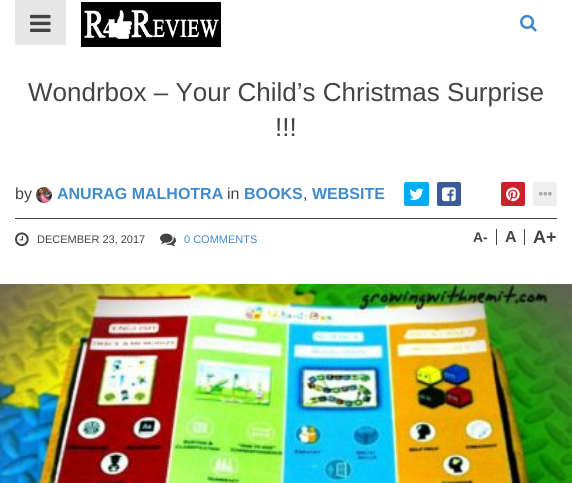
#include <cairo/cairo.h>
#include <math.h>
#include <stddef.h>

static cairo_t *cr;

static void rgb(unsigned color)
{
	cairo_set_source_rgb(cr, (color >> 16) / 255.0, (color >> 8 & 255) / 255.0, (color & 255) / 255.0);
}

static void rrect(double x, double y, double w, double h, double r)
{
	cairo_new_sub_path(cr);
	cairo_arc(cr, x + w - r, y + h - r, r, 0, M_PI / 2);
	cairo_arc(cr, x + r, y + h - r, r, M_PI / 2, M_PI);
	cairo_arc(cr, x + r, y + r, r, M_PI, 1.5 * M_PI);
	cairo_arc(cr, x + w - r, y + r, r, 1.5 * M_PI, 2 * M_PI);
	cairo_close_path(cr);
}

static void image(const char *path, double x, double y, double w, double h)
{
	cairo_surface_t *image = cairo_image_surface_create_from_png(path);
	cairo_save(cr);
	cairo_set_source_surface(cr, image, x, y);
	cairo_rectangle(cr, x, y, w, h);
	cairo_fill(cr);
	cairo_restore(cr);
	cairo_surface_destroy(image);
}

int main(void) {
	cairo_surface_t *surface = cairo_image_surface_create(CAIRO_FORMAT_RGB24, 572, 483);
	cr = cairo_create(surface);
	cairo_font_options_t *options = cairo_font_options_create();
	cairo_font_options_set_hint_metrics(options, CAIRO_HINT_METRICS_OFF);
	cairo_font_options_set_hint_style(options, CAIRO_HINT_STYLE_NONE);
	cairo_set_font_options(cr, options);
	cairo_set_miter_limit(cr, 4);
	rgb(0xffffff);
	cairo_paint(cr);
	rgb(0xe6e6e6);
	cairo_rectangle(cr, 15, 0, 51, 45);
	cairo_fill(cr);
	image("img/1.png", 30, 14, 21, 18);
	image("img/2.png", 81, 2, 140, 45);
	image("img/3.png", 520, 14, 17, 18);
	image("img/4.png", 36, 187, 16, 16);
	rgb(0x00aeef);
	rrect(404, 182, 25, 24, 2);
	cairo_fill(cr);
	image("img/5.png", 409, 188, 15, 12);
	rgb(0x3b5998);
	rrect(437, 182, 24, 24, 2);
	cairo_fill(cr);
	image("img/6.png", 442, 187, 14, 15);
	rgb(0xca212a);
	rrect(501, 182, 24, 24, 2);
	cairo_fill(cr);
	image("img/7.png", 506, 187, 14, 15);
	rgb(0xeeeeee);
	rrect(533, 182, 24, 24, 2);
	cairo_fill(cr);
	image("img/8.png", 539, 192, 13, 4);
	rgb(0x444444);
	cairo_rectangle(cr, 15, 218, 542, 1);
	cairo_fill(cr);
	image("img/9.png", 15, 232, 14, 15);
	image("img/10.png", 160, 233, 16, 14);
	cairo_rectangle(cr, 496, 229, 1, 16);
	cairo_fill(cr);
	cairo_rectangle(cr, 524, 229, 1, 16);
	cairo_fill(cr);
	image("img/11.png", 0, 284, 572, 199);
	cairo_select_font_face(cr, "Liberation Sans", CAIRO_FONT_SLANT_NORMAL, CAIRO_FONT_WEIGHT_NORMAL);
	cairo_set_font_size(cr, 26);
	cairo_move_to(cr, 28, 101);
	cairo_show_text(cr, "Wondrbox – Your Child’s Christmas Surprise");
	cairo_move_to(cr, 275, 136);
	cairo_show_text(cr, "!!!");
	cairo_set_font_size(cr, 16);
	cairo_move_to(cr, 15, 199);
	cairo_show_text(cr, "by");
	cairo_select_font_face(cr, "Liberation Sans", CAIRO_FONT_SLANT_NORMAL, CAIRO_FONT_WEIGHT_BOLD);
	rgb(0x428bca);
	cairo_move_to(cr, 57, 199);
	cairo_show_text(cr, "ANURAG MALHOTRA");
	cairo_select_font_face(cr, "Liberation Sans", CAIRO_FONT_SLANT_NORMAL, CAIRO_FONT_WEIGHT_NORMAL);
	rgb(0x444444);
	cairo_move_to(cr, 227, 199);
	cairo_show_text(cr, "in");
	cairo_select_font_face(cr, "Liberation Sans", CAIRO_FONT_SLANT_NORMAL, CAIRO_FONT_WEIGHT_BOLD);
	rgb(0x428bca);
	cairo_move_to(cr, 244, 199);
	cairo_show_text(cr, "BOOKS");
	cairo_select_font_face(cr, "Liberation Sans", CAIRO_FONT_SLANT_NORMAL, CAIRO_FONT_WEIGHT_NORMAL);
	rgb(0x444444);
	cairo_move_to(cr, 303, 199);
	cairo_show_text(cr, ",");
	cairo_select_font_face(cr, "Liberation Sans", CAIRO_FONT_SLANT_NORMAL, CAIRO_FONT_WEIGHT_BOLD);
	rgb(0x428bca);
	cairo_move_to(cr, 312, 199);
	cairo_show_text(cr, "WEBSITE");
	cairo_select_font_face(cr, "Liberation Sans", CAIRO_FONT_SLANT_NORMAL, CAIRO_FONT_WEIGHT_NORMAL);
	cairo_set_font_size(cr, 11);
	rgb(0x444444);
	cairo_move_to(cr, 37, 243);
	cairo_show_text(cr, "DECEMBER 23, 2017");
	rgb(0x428bca);
	cairo_move_to(cr, 184, 243);
	cairo_show_text(cr, "0 COMMENTS");
	cairo_select_font_face(cr, "Liberation Sans", CAIRO_FONT_SLANT_NORMAL, CAIRO_FONT_WEIGHT_BOLD);
	cairo_set_font_size(cr, 14);
	rgb(0x444444);
	cairo_move_to(cr, 473, 242);
	cairo_show_text(cr, "A-");
	cairo_set_font_size(cr, 16);
	cairo_move_to(cr, 505, 242);
	cairo_show_text(cr, "A");
	cairo_set_font_size(cr, 18);
	cairo_move_to(cr, 533, 243);
	cairo_show_text(cr, "A+");
	cairo_surface_write_to_png(surface, "page.png");
	cairo_font_options_destroy(options);
	cairo_destroy(cr);
	cairo_surface_destroy(surface);
	return 0;
}
